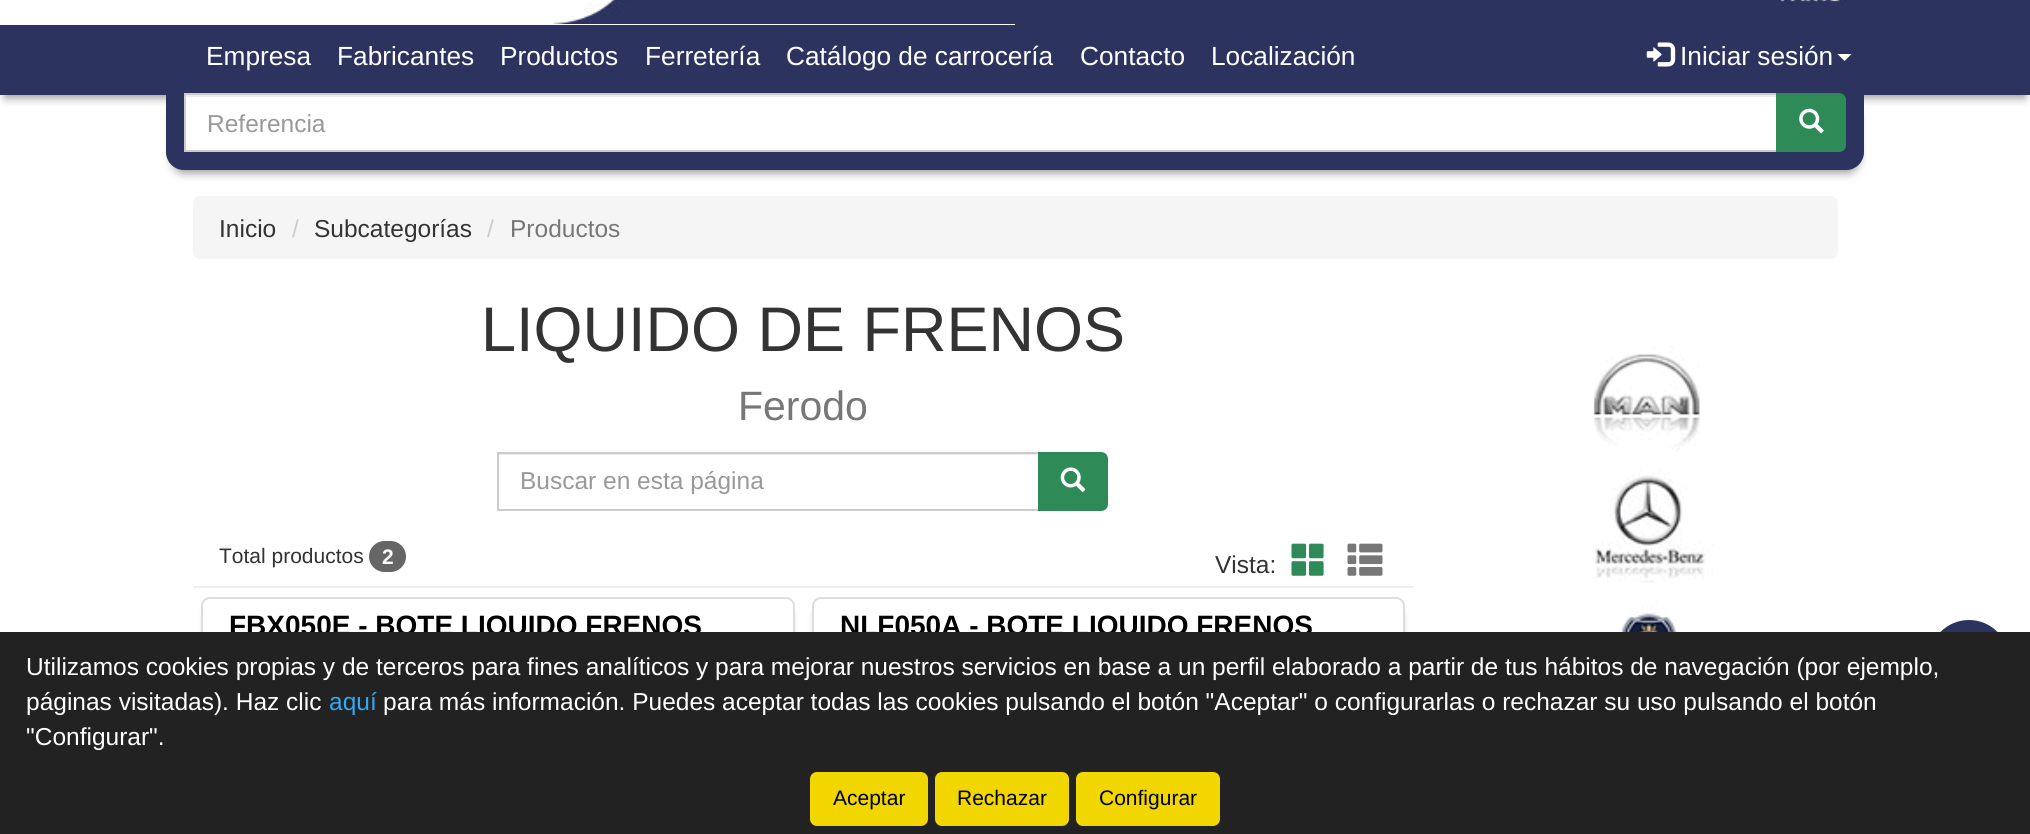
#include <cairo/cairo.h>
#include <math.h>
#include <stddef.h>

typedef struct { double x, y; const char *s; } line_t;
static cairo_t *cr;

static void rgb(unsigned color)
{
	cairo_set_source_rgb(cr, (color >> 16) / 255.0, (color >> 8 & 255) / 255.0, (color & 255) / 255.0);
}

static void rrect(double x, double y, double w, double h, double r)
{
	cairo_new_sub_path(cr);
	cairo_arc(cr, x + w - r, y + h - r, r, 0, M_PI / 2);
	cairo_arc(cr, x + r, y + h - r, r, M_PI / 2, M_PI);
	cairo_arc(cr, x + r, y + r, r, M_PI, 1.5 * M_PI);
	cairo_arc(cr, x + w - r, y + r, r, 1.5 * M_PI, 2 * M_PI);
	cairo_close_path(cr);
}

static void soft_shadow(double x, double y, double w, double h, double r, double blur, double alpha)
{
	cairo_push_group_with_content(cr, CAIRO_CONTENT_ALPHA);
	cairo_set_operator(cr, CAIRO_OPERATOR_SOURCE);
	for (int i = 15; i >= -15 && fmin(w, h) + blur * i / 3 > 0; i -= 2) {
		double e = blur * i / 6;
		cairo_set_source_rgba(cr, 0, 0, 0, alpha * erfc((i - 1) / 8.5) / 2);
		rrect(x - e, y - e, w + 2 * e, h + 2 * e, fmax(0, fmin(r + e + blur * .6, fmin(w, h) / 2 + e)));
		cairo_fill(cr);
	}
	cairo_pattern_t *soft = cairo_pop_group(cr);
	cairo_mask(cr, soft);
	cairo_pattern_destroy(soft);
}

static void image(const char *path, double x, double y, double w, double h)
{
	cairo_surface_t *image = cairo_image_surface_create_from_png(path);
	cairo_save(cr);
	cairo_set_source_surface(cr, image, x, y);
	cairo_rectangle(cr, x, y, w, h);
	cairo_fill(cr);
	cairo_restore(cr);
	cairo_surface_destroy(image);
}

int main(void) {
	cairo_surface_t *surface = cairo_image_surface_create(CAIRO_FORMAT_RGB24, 2030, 834);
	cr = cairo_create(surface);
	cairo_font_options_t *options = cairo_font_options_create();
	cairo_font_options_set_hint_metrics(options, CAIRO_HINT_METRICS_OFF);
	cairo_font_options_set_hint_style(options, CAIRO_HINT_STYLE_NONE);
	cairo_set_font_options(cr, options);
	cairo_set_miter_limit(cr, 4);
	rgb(0xffffff);
	cairo_paint(cr);
	rgb(0x2c335f);
	cairo_rectangle(cr, 1015, 0, 1015, 25);
	cairo_fill(cr);
	image("img/1.png", 552, 0, 1297, 24);
	rgb(0x000000);
	soft_shadow(5, 39, 2020, 59, 0, 4.5, 0.4);
	rgb(0x2c335f);
	cairo_rectangle(cr, 0, 25, 2030, 70);
	cairo_fill(cr);
	image("img/2.png", 1646, 42, 30, 25);
	rgb(0xffffff);
	cairo_new_path(cr);
	cairo_move_to(cr, 1837.5, 54);
	cairo_line_to(cr, 1851.5, 54);
	cairo_line_to(cr, 1844.5, 61);
	cairo_close_path(cr);
	cairo_fill(cr);
	rgb(0x000000);
	soft_shadow(172, 107, 1687, 66, 12, 4.5, 0.4);
	rgb(0x2c335f);
	cairo_new_path(cr);
	cairo_move_to(cr, 166, 93);
	cairo_line_to(cr, 1864, 93);
	cairo_line_to(cr, 1864, 152);
	cairo_curve_to(cr, 1864, 162, 1856, 170, 1846, 170);
	cairo_line_to(cr, 184, 170);
	cairo_curve_to(cr, 174, 170, 166, 162, 166, 152);
	cairo_close_path(cr);
	cairo_fill(cr);
	rgb(0xffffff);
	cairo_rectangle(cr, 186, 97, 1590, 53);
	cairo_fill(cr);
	rgb(0xececec);
	cairo_rectangle(cr, 186, 95, 1590, 2);
	cairo_fill(cr);
	cairo_rectangle(cr, 185, 94, 1592, 57);
	rgb(0xcccccc);
	cairo_stroke(cr);
	rgb(0x2e8b57);
	cairo_new_path(cr);
	cairo_move_to(cr, 1777, 94);
	cairo_line_to(cr, 1839, 94);
	cairo_curve_to(cr, 1842.5, 94, 1845, 96.5, 1845, 100);
	cairo_line_to(cr, 1845, 145);
	cairo_curve_to(cr, 1845, 148.5, 1842.5, 151, 1839, 151);
	cairo_line_to(cr, 1777, 151);
	cairo_close_path(cr);
	cairo_fill_preserve(cr);
	cairo_stroke(cr);
	image("img/3.png", 1799, 108, 25, 26);
	rgb(0xf5f5f5);
	rrect(193, 196, 1645, 63, 7);
	cairo_fill(cr);
	rgb(0xececec);
	cairo_rectangle(cr, 499, 454, 539, 1);
	cairo_fill(cr);
	cairo_rectangle(cr, 498, 453, 541, 57);
	rgb(0xcccccc);
	cairo_stroke(cr);
	rgb(0x2e8b57);
	cairo_new_path(cr);
	cairo_move_to(cr, 1039, 453);
	cairo_line_to(cr, 1101, 453);
	cairo_curve_to(cr, 1104.5, 453, 1107, 455.5, 1107, 459);
	cairo_line_to(cr, 1107, 504);
	cairo_curve_to(cr, 1107, 507.5, 1104.5, 510, 1101, 510);
	cairo_line_to(cr, 1039, 510);
	cairo_close_path(cr);
	cairo_fill_preserve(cr);
	cairo_stroke(cr);
	image("img/4.png", 1060, 467, 26, 25);
	rgb(0xeeeeee);
	cairo_rectangle(cr, 193, 586, 1221, 2);
	cairo_fill(cr);
	rgb(0x666666);
	rrect(369, 541, 37, 31, 15.5);
	cairo_fill(cr);
	image("img/5.png", 1291, 543, 33, 33);
	image("img/6.png", 1347, 543, 36, 33);
	rgb(0x000000);
	soft_shadow(207, 611, 582, 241, 4, 4.5, 0.4);
	rgb(0xffffff);
	rrect(202, 598, 592, 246, 8);
	cairo_fill_preserve(cr);
	rgb(0xdddddd);
	cairo_stroke(cr);
	cairo_save(cr);
	cairo_set_fill_rule(cr, CAIRO_FILL_RULE_EVEN_ODD);
	cairo_new_path(cr);
	cairo_move_to(cr, 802, 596);
	cairo_line_to(cr, 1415, 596);
	cairo_line_to(cr, 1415, 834);
	cairo_line_to(cr, 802, 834);
	cairo_close_path(cr);
	cairo_move_to(cr, 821, 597);
	cairo_line_to(cr, 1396, 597);
	cairo_curve_to(cr, 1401, 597, 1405, 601, 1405, 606);
	cairo_line_to(cr, 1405, 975);
	cairo_curve_to(cr, 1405, 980, 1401, 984, 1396, 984);
	cairo_line_to(cr, 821, 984);
	cairo_curve_to(cr, 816, 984, 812, 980, 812, 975);
	cairo_line_to(cr, 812, 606);
	cairo_curve_to(cr, 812, 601, 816, 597, 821, 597);
	cairo_close_path(cr);
	cairo_clip(cr);
	rgb(0x000000);
	soft_shadow(817, 611, 583, 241, 4, 4.5, 0.4);
	cairo_restore(cr);
	rrect(813, 598, 591, 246, 8);
	cairo_stroke(cr);
	image("img/7.png", 1580, 346, 135, 286);
	rgb(0x2c335f);
	cairo_arc(cr, 1969, 660, 42, 0, 2 * M_PI);
	cairo_fill_preserve(cr);
	rgb(0xffffff);
	cairo_set_line_width(cr, 4);
	cairo_stroke(cr);
	cairo_select_font_face(cr, "Liberation Sans", CAIRO_FONT_SLANT_NORMAL, CAIRO_FONT_WEIGHT_NORMAL);
	cairo_set_font_size(cr, 26.25);
	{
		static const line_t items[] = {
			{206, 65, "Empresa"},
			{337, 65, "Fabricantes"},
			{500, 65, "Productos"},
			{645, 65, "Ferretería"},
			{786, 65, "Catálogo de carrocería"},
			{1080, 65, "Contacto"},
			{1211, 65, "Localización"},
			{1680, 65, "Iniciar sesión"},
		};
		for (size_t i = 0; i < sizeof items / sizeof *items; i++) {
			cairo_move_to(cr, items[i].x, items[i].y);
			cairo_show_text(cr, items[i].s);
		}
	}
	cairo_set_font_size(cr, 24.5);
	rgb(0x999999);
	cairo_move_to(cr, 207, 132);
	cairo_show_text(cr, "Referencia");
	rgb(0x333333);
	cairo_move_to(cr, 219, 237);
	cairo_show_text(cr, "Inicio");
	rgb(0xcccccc);
	cairo_move_to(cr, 292, 237);
	cairo_show_text(cr, "/");
	rgb(0x333333);
	cairo_move_to(cr, 314, 237);
	cairo_show_text(cr, "Subcategorías");
	rgb(0xcccccc);
	cairo_move_to(cr, 487, 237);
	cairo_show_text(cr, "/");
	rgb(0x777777);
	cairo_move_to(cr, 510, 237);
	cairo_show_text(cr, "Productos");
	cairo_set_font_size(cr, 63);
	rgb(0x333333);
	cairo_move_to(cr, 481, 351);
	cairo_show_text(cr, "LIQUIDO DE FRENOS");
	cairo_set_font_size(cr, 41);
	rgb(0x777777);
	cairo_move_to(cr, 738, 420);
	cairo_show_text(cr, "Ferodo");
	cairo_set_font_size(cr, 24.5);
	rgb(0x999999);
	cairo_move_to(cr, 520, 489);
	cairo_show_text(cr, "Buscar en esta página");
	cairo_set_font_size(cr, 21);
	rgb(0x333333);
	cairo_move_to(cr, 219, 563);
	cairo_show_text(cr, "Total productos");
	cairo_select_font_face(cr, "Liberation Sans", CAIRO_FONT_SLANT_NORMAL, CAIRO_FONT_WEIGHT_BOLD);
	rgb(0xffffff);
	cairo_move_to(cr, 382, 564);
	cairo_show_text(cr, "2");
	cairo_select_font_face(cr, "Liberation Sans", CAIRO_FONT_SLANT_NORMAL, CAIRO_FONT_WEIGHT_NORMAL);
	cairo_set_font_size(cr, 24.5);
	rgb(0x333333);
	cairo_move_to(cr, 1215, 573);
	cairo_show_text(cr, "Vista:");
	cairo_select_font_face(cr, "Liberation Sans", CAIRO_FONT_SLANT_NORMAL, CAIRO_FONT_WEIGHT_BOLD);
	cairo_set_font_size(cr, 28);
	rgb(0x000000);
	cairo_move_to(cr, 229, 635);
	cairo_show_text(cr, "FBX050E - BOTE LIQUIDO FRENOS");
	cairo_move_to(cr, 840, 635);
	cairo_show_text(cr, "NLF050A - BOTE LIQUIDO FRENOS");
	rgb(0x222222);
	cairo_rectangle(cr, 0, 632, 2030, 202);
	cairo_fill(cr);
	cairo_select_font_face(cr, "Liberation Sans", CAIRO_FONT_SLANT_NORMAL, CAIRO_FONT_WEIGHT_NORMAL);
	cairo_set_font_size(cr, 24.5);
	rgb(0xffffff);
	cairo_move_to(cr, 26, 675);
	cairo_show_text(cr, "Utilizamos cookies propias y de terceros para fines analíticos y para mejorar nuestros servicios en base a un perfil elaborado a partir de tus hábitos de navegación (por ejemplo,");
	cairo_move_to(cr, 26, 710);
	cairo_show_text(cr, "páginas visitadas). Haz clic");
	rgb(0x31a8f0);
	cairo_move_to(cr, 329, 710);
	cairo_show_text(cr, "aquí");
	rgb(0xffffff);
	cairo_move_to(cr, 383, 710);
	cairo_show_text(cr, "para más información. Puedes aceptar todas las cookies pulsando el botón \"Aceptar\" o configurarlas o rechazar su uso pulsando el botón");
	cairo_move_to(cr, 26, 745);
	cairo_show_text(cr, "\"Configurar\".");
	rgb(0xf1d600);
	rrect(810, 772, 118, 54, 7);
	cairo_fill(cr);
	cairo_set_font_size(cr, 21);
	rgb(0x000000);
	cairo_move_to(cr, 833, 805);
	cairo_show_text(cr, "Aceptar");
	rgb(0xf1d600);
	rrect(935, 772, 134, 54, 7);
	cairo_fill(cr);
	rgb(0x000000);
	cairo_move_to(cr, 957, 805);
	cairo_show_text(cr, "Rechazar");
	rgb(0xf1d600);
	rrect(1076, 772, 144, 54, 7);
	cairo_fill(cr);
	rgb(0x000000);
	cairo_move_to(cr, 1099, 805);
	cairo_show_text(cr, "Configurar");
	cairo_surface_write_to_png(surface, "page.png");
	cairo_font_options_destroy(options);
	cairo_destroy(cr);
	cairo_surface_destroy(surface);
	return 0;
}
